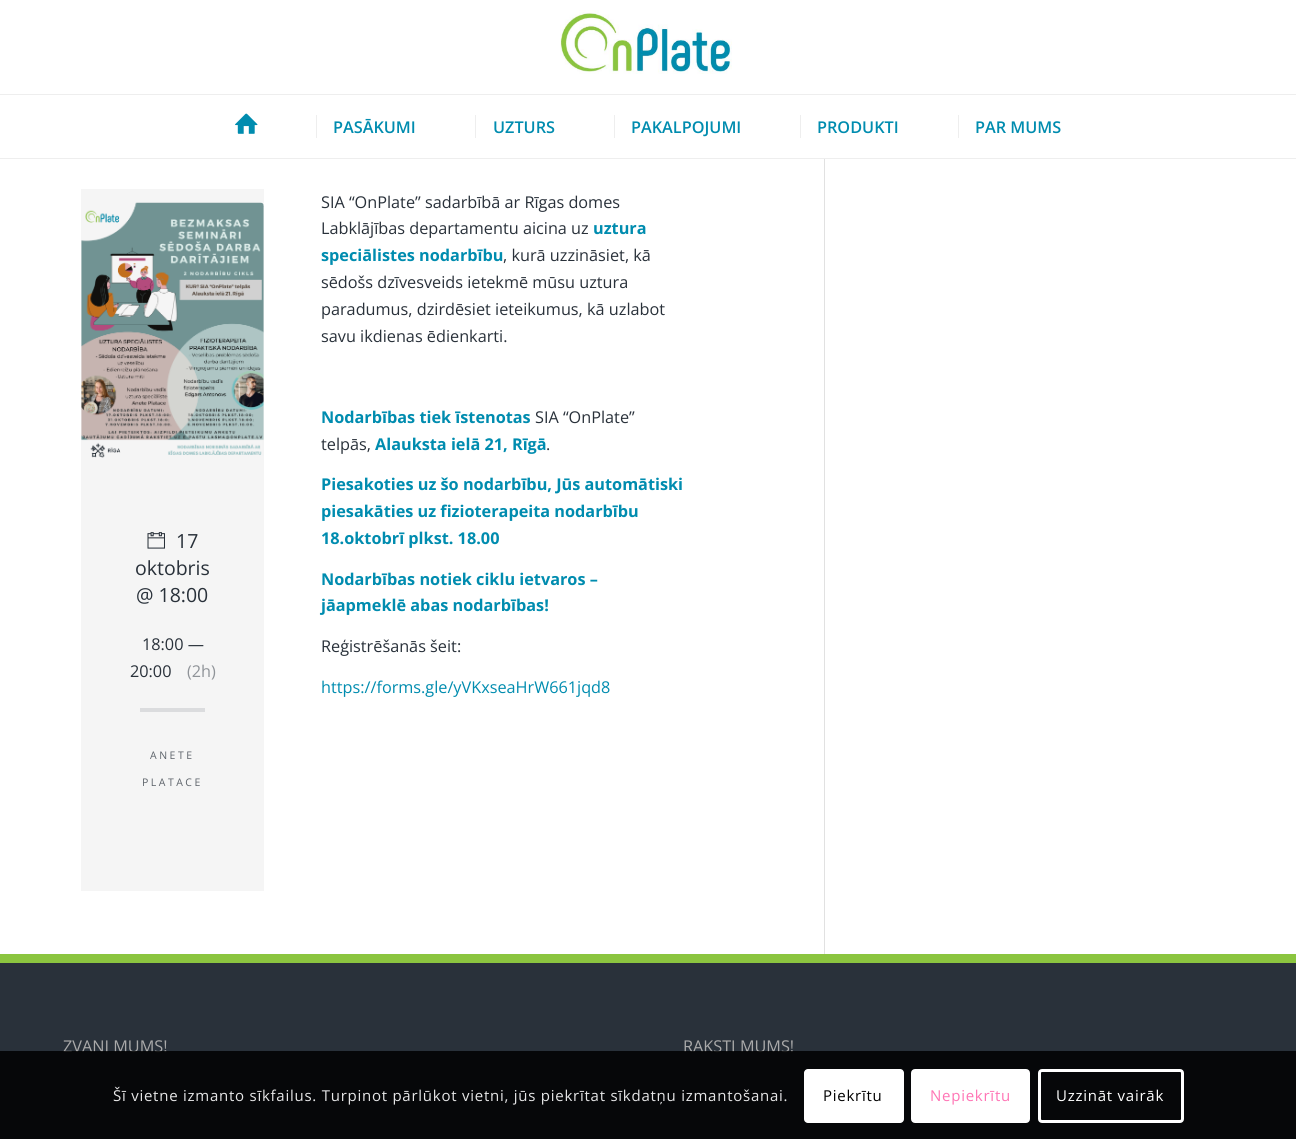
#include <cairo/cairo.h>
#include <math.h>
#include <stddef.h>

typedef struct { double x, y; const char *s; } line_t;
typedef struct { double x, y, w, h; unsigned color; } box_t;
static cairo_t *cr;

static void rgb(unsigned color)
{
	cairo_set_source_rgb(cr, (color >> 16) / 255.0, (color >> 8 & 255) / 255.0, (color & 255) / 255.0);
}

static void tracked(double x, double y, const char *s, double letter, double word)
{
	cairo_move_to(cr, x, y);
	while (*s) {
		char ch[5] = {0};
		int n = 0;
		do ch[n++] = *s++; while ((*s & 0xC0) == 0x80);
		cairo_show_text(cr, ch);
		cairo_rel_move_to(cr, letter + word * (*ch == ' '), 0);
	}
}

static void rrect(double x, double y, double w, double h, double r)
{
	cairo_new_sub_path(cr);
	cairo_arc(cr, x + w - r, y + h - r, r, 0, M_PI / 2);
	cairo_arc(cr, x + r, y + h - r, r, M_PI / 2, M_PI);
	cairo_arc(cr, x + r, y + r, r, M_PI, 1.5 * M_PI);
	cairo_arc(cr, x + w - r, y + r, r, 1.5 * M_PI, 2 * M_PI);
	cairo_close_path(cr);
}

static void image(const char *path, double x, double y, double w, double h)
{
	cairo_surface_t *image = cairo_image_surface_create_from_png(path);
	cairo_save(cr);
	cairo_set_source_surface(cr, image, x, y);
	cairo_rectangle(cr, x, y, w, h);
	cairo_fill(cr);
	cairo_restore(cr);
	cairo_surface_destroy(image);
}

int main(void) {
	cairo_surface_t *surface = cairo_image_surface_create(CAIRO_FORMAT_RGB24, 1296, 1139);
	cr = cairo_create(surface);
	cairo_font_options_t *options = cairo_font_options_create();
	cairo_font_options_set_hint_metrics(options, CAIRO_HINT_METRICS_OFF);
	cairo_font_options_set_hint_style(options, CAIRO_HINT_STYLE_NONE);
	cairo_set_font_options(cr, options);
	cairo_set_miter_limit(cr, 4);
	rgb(0xffffff);
	cairo_paint(cr);
	rgb(0xeeeeee);
	cairo_rectangle(cr, 0, 158, 1296, 1);
	cairo_fill(cr);
	image("img/1.png", 560, 10, 172, 64);
	cairo_rectangle(cr, 0, 94, 1296, 1);
	cairo_fill(cr);
	image("img/2.png", 235, 113, 23, 21);
	{
		static const box_t items[] = {
			{316, 115, 1, 23, 0xeeeeee},
			{475, 115, 1, 23, 0xeeeeee},
			{614, 115, 1, 23, 0xeeeeee},
			{800, 115, 1, 23, 0xeeeeee},
			{958, 115, 1, 23, 0xeeeeee},
			{824, 159, 1, 795, 0xe1e1e1},
		};
		for (size_t i = 0; i < sizeof items / sizeof *items; i++) {
			rgb(items[i].color);
			cairo_rectangle(cr, items[i].x, items[i].y, items[i].w, items[i].h);
			cairo_fill(cr);
		}
	}
	image("img/3.png", 81, 202, 183, 256);
	image("img/4.png", 147, 532, 18, 17);
	cairo_set_source_rgba(cr, 0.161, 0.192, 0.227, 0.05);
	cairo_rectangle(cr, 81, 189, 183, 702);
	cairo_fill(cr);
	rgb(0xdbdcde);
	cairo_rectangle(cr, 140, 708, 65, 4);
	cairo_fill(cr);
	rgb(0x29313a);
	cairo_rectangle(cr, 0, 963, 1296, 176);
	cairo_fill(cr);
	rgb(0x8bc53f);
	cairo_rectangle(cr, 0, 954, 1296, 9);
	cairo_fill(cr);
	cairo_select_font_face(cr, "Open Sans SemiBold", CAIRO_FONT_SLANT_NORMAL, CAIRO_FONT_WEIGHT_NORMAL);
	cairo_set_font_size(cr, 16.25);
	rgb(0x008caf);
	{
		static const line_t items[] = {
			{333, 133, "PASĀKUMI"},
			{493, 133, "UZTURS"},
			{631, 133, "PAKALPOJUMI"},
			{817, 133, "PRODUKTI"},
			{975, 133, "PAR MUMS"},
		};
		for (size_t i = 0; i < sizeof items / sizeof *items; i++) {
			cairo_move_to(cr, items[i].x, items[i].y);
			cairo_show_text(cr, items[i].s);
		}
	}
	cairo_select_font_face(cr, "Open Sans", CAIRO_FONT_SLANT_NORMAL, CAIRO_FONT_WEIGHT_NORMAL);
	cairo_set_font_size(cr, 19.5);
	rgb(0x29313a);
	{
		static const line_t items[] = {
			{176, 548, "17"},
			{135, 575, "oktobris"},
			{136, 602, "@ 18:00"},
		};
		for (size_t i = 0; i < sizeof items / sizeof *items; i++) {
			cairo_move_to(cr, items[i].x, items[i].y);
			cairo_show_text(cr, items[i].s);
		}
	}
	cairo_set_font_size(cr, 16.25);
	cairo_move_to(cr, 142, 650);
	cairo_show_text(cr, "18:00 —");
	cairo_move_to(cr, 130, 677);
	cairo_show_text(cr, "20:00");
	rgb(0x8f9398);
	cairo_move_to(cr, 187, 677);
	cairo_show_text(cr, "(2h)");
	cairo_set_font_size(cr, 10.5);
	rgb(0x5c6269);
	tracked(150, 759, "ANETE", 2.5, 0);
	tracked(142, 786, "PLATACE", 2.5, 0);
	cairo_set_font_size(cr, 16.25);
	rgb(0x29313a);
	cairo_move_to(cr, 321, 208);
	cairo_show_text(cr, "SIA “OnPlate” sadarbībā ar Rīgas domes");
	cairo_move_to(cr, 321, 234);
	cairo_show_text(cr, "Labklājības departamentu aicina uz");
	cairo_select_font_face(cr, "Open Sans", CAIRO_FONT_SLANT_NORMAL, CAIRO_FONT_WEIGHT_BOLD);
	rgb(0x008caf);
	cairo_move_to(cr, 593, 234);
	cairo_show_text(cr, "uztura");
	cairo_move_to(cr, 321, 261);
	cairo_show_text(cr, "speciālistes nodarbību");
	cairo_select_font_face(cr, "Open Sans", CAIRO_FONT_SLANT_NORMAL, CAIRO_FONT_WEIGHT_NORMAL);
	rgb(0x29313a);
	{
		static const line_t items[] = {
			{503, 261, ", kurā uzzināsiet, kā"},
			{321, 288, "sēdošs dzīvesveids ietekmē mūsu uztura"},
			{321, 315, "paradumus, dzirdēsiet ieteikumus, kā uzlabot"},
			{321, 342, "savu ikdienas ēdienkarti."},
		};
		for (size_t i = 0; i < sizeof items / sizeof *items; i++) {
			cairo_move_to(cr, items[i].x, items[i].y);
			cairo_show_text(cr, items[i].s);
		}
	}
	cairo_select_font_face(cr, "Open Sans", CAIRO_FONT_SLANT_NORMAL, CAIRO_FONT_WEIGHT_BOLD);
	rgb(0x008caf);
	cairo_move_to(cr, 321, 423);
	cairo_show_text(cr, "Nodarbības tiek īstenotas");
	cairo_select_font_face(cr, "Open Sans", CAIRO_FONT_SLANT_NORMAL, CAIRO_FONT_WEIGHT_NORMAL);
	rgb(0x29313a);
	cairo_move_to(cr, 535, 423);
	cairo_show_text(cr, "SIA “OnPlate”");
	cairo_move_to(cr, 321, 450);
	cairo_show_text(cr, "telpās,");
	cairo_select_font_face(cr, "Open Sans", CAIRO_FONT_SLANT_NORMAL, CAIRO_FONT_WEIGHT_BOLD);
	rgb(0x008caf);
	cairo_move_to(cr, 375, 450);
	cairo_show_text(cr, "Alauksta ielā 21, Rīgā");
	cairo_select_font_face(cr, "Open Sans", CAIRO_FONT_SLANT_NORMAL, CAIRO_FONT_WEIGHT_NORMAL);
	rgb(0x29313a);
	cairo_move_to(cr, 546, 450);
	cairo_show_text(cr, ".");
	cairo_select_font_face(cr, "Open Sans", CAIRO_FONT_SLANT_NORMAL, CAIRO_FONT_WEIGHT_BOLD);
	rgb(0x008caf);
	{
		static const line_t items[] = {
			{321, 490, "Piesakoties uz šo nodarbību, Jūs automātiski"},
			{321, 517, "piesakāties uz fizioterapeita nodarbību"},
			{321, 544, "18.oktobrī plkst. 18.00"},
			{321, 585, "Nodarbības notiek ciklu ietvaros –"},
			{321, 611, "jāapmeklē abas nodarbības!"},
		};
		for (size_t i = 0; i < sizeof items / sizeof *items; i++) {
			cairo_move_to(cr, items[i].x, items[i].y);
			cairo_show_text(cr, items[i].s);
		}
	}
	cairo_select_font_face(cr, "Open Sans", CAIRO_FONT_SLANT_NORMAL, CAIRO_FONT_WEIGHT_NORMAL);
	rgb(0x29313a);
	cairo_move_to(cr, 321, 652);
	cairo_show_text(cr, "Reģistrēšanās šeit:");
	rgb(0x008caf);
	cairo_move_to(cr, 321, 693);
	cairo_show_text(cr, "https://forms.gle/yVKxseaHrW661jqd8");
	rgb(0xaaaaaa);
	cairo_move_to(cr, 63, 1052);
	cairo_show_text(cr, "ZVANI MUMS!");
	cairo_move_to(cr, 683, 1052);
	cairo_show_text(cr, "RAKSTI MUMS!");
	cairo_set_source_rgba(cr, 0, 0, 0, 0.85);
	cairo_rectangle(cr, 0, 1051, 1296, 88);
	cairo_fill(cr);
	cairo_set_font_size(cr, 15);
	rgb(0xe6e6e7);
	tracked(113, 1101, "Šī vietne izmanto sīkfailus. Turpinot pārlūkot vietni, jūs piekrītat sīkdatņu izmantošanai.", 0.75, 0);
	rgb(0xffffff);
	rrect(804, 1069, 100, 54, 4);
	cairo_fill(cr);
	rgb(0x000000);
	tracked(823, 1101, "Piekrītu", 0.75, 0);
	rgb(0xffffff);
	rrect(912.5, 1070.5, 116, 51, 2.5);
	cairo_fill_preserve(cr);
	cairo_set_line_width(cr, 3);
	cairo_stroke(cr);
	rgb(0xff75b5);
	tracked(930, 1101, "Nepiekrītu", 0.75, 0);
	rrect(1039.5, 1070.5, 143, 51, 2.5);
	rgb(0xffffff);
	cairo_stroke(cr);
	tracked(1056, 1101, "Uzzināt vairāk", 0.75, 0);
	cairo_surface_write_to_png(surface, "page.png");
	cairo_font_options_destroy(options);
	cairo_destroy(cr);
	cairo_surface_destroy(surface);
	return 0;
}
